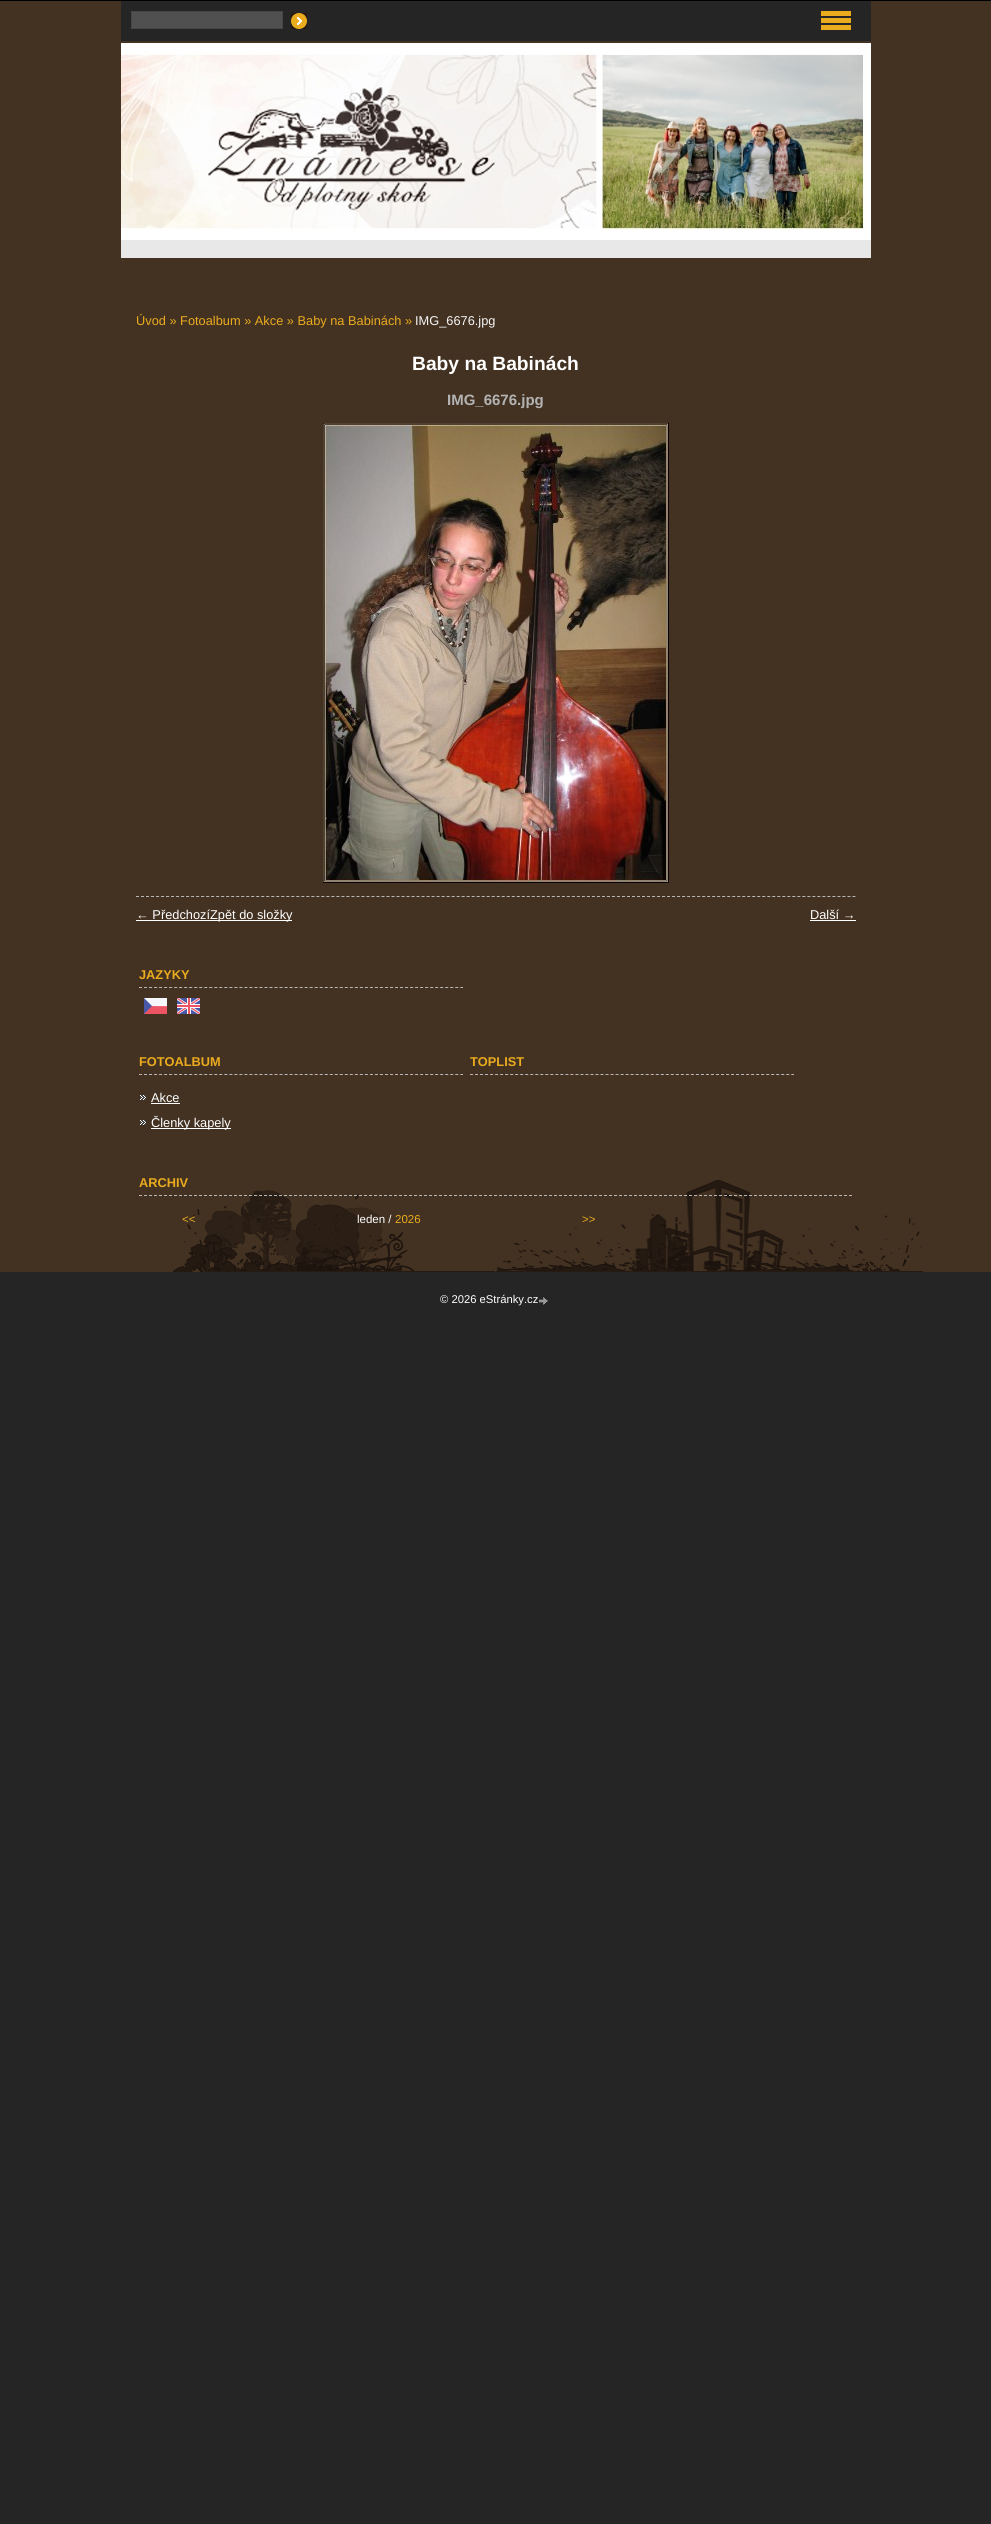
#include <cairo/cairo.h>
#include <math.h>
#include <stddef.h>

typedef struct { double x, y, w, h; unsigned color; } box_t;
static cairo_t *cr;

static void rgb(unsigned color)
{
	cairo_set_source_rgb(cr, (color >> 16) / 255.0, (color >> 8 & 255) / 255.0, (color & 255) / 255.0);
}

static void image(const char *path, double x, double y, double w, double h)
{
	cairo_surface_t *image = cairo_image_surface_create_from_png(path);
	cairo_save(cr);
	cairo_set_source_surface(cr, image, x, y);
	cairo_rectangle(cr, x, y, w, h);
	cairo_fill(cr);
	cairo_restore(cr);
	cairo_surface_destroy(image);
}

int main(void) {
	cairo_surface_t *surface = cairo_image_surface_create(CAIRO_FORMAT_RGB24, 991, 2524);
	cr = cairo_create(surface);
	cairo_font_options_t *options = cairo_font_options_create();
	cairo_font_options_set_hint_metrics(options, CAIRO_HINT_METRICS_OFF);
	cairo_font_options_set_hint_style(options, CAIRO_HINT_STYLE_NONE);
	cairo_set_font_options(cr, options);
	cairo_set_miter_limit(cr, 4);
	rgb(0x252525);
	cairo_paint(cr);
	{
		static const box_t items[] = {
			{0, 1, 991, 1271, 0x433222},
			{0, 0, 991, 1, 0x000000},
			{121, 1, 750, 40, 0x252525},
			{821, 11, 30, 5, 0xeaab1e},
			{821, 18, 30, 5, 0xeaab1e},
			{821, 25, 30, 5, 0xeaab1e},
			{121, 240, 750, 18, 0xe8e8e8},
		};
		for (size_t i = 0; i < sizeof items / sizeof *items; i++) {
			rgb(items[i].color);
			cairo_rectangle(cr, items[i].x, items[i].y, items[i].w, items[i].h);
			cairo_fill(cr);
		}
	}
	image("img/1.png", 121, 43, 750, 197);
	cairo_new_path(cr);
	cairo_move_to(cr, 136, 896.5);
	cairo_line_to(cr, 856, 896.5);
	rgb(0xb8b8b8);
	cairo_set_line_width(cr, 1);
	cairo_set_dash(cr, (double[]){3, 2.01}, 2, 0);
	cairo_stroke(cr);
	image("img/2.png", 323, 423, 346, 460);
	rgb(0xffffff);
	cairo_rectangle(cr, 136, 920, 156, 1);
	cairo_fill(cr);
	cairo_rectangle(cr, 810, 920, 46, 1);
	cairo_fill(cr);
	cairo_new_path(cr);
	cairo_move_to(cr, 139, 987.5);
	cairo_line_to(cr, 463, 987.5);
	rgb(0xb8b8b8);
	cairo_set_dash(cr, (double[]){3, 2.02}, 2, 0);
	cairo_stroke(cr);
	image("img/3.png", 144, 998, 23, 16);
	image("img/4.png", 177, 998, 23, 16);
	rgb(0x505050);
	cairo_rectangle(cr, 131.5, 11.5, 151, 17);
	cairo_fill_preserve(cr);
	rgb(0x464646);
	cairo_set_dash(cr, NULL, 0, 0);
	cairo_stroke(cr);
	image("img/5.png", 291, 13, 16, 16);
	cairo_new_path(cr);
	cairo_move_to(cr, 139, 1074.5);
	cairo_line_to(cr, 463, 1074.5);
	rgb(0xb8b8b8);
	cairo_set_dash(cr, (double[]){3, 2.02}, 2, 0);
	cairo_stroke(cr);
	image("img/6.png", 140, 1095, 6, 5);
	rgb(0xffffff);
	cairo_rectangle(cr, 151, 1103, 29, 1);
	cairo_fill(cr);
	image("img/6.png", 140, 1120, 6, 5);
	cairo_rectangle(cr, 151, 1128, 80, 1);
	cairo_fill(cr);
	cairo_new_path(cr);
	cairo_move_to(cr, 470, 1074.5);
	cairo_line_to(cr, 794, 1074.5);
	rgb(0xb8b8b8);
	cairo_stroke(cr);
	image("img/7.png", 173, 1190, 322, 82);
	image("img/8.png", 496, 1180, 427, 92);
	cairo_new_path(cr);
	cairo_move_to(cr, 139, 1195.5);
	cairo_line_to(cr, 852, 1195.5);
	cairo_set_dash(cr, (double[]){3, 2}, 2, 0);
	cairo_stroke(cr);
	image("img/9.png", 539, 1297, 9, 8);
	cairo_select_font_face(cr, "Liberation Sans", CAIRO_FONT_SLANT_NORMAL, CAIRO_FONT_WEIGHT_NORMAL);
	cairo_set_font_size(cr, 12.8);
	rgb(0xeaab1e);
	cairo_move_to(cr, 136, 325);
	cairo_show_text(cr, "Úvod » Fotoalbum » Akce » Baby na Babinách »");
	rgb(0xf5f5f5);
	cairo_move_to(cr, 415, 325);
	cairo_show_text(cr, "IMG_6676.jpg");
	cairo_select_font_face(cr, "Liberation Sans", CAIRO_FONT_SLANT_NORMAL, CAIRO_FONT_WEIGHT_BOLD);
	cairo_set_font_size(cr, 19.25);
	rgb(0xffffff);
	cairo_move_to(cr, 412, 370);
	cairo_show_text(cr, "Baby na Babinách");
	cairo_set_font_size(cr, 15);
	rgb(0xb3b3b3);
	cairo_move_to(cr, 447, 405);
	cairo_show_text(cr, "IMG_6676.jpg");
	cairo_select_font_face(cr, "Liberation Sans", CAIRO_FONT_SLANT_NORMAL, CAIRO_FONT_WEIGHT_NORMAL);
	cairo_set_font_size(cr, 12.8);
	rgb(0xffffff);
	cairo_move_to(cr, 136, 919);
	cairo_show_text(cr, "← PředchozíZpět do složky");
	cairo_move_to(cr, 810, 919);
	cairo_show_text(cr, "Další →");
	cairo_select_font_face(cr, "Liberation Sans", CAIRO_FONT_SLANT_NORMAL, CAIRO_FONT_WEIGHT_BOLD);
	rgb(0xeaab1e);
	cairo_move_to(cr, 139, 979);
	cairo_show_text(cr, "JAZYKY");
	cairo_move_to(cr, 139, 1066);
	cairo_show_text(cr, "FOTOALBUM");
	cairo_select_font_face(cr, "Liberation Sans", CAIRO_FONT_SLANT_NORMAL, CAIRO_FONT_WEIGHT_NORMAL);
	rgb(0xffffff);
	cairo_move_to(cr, 151, 1102);
	cairo_show_text(cr, "Akce");
	cairo_move_to(cr, 151, 1127);
	cairo_show_text(cr, "Členky kapely");
	cairo_select_font_face(cr, "Liberation Sans", CAIRO_FONT_SLANT_NORMAL, CAIRO_FONT_WEIGHT_BOLD);
	rgb(0xeaab1e);
	cairo_move_to(cr, 470, 1066);
	cairo_show_text(cr, "TOPLIST");
	cairo_move_to(cr, 139, 1187);
	cairo_show_text(cr, "ARCHIV");
	cairo_select_font_face(cr, "Liberation Sans", CAIRO_FONT_SLANT_NORMAL, CAIRO_FONT_WEIGHT_NORMAL);
	cairo_set_font_size(cr, 11.5);
	cairo_move_to(cr, 182, 1223);
	cairo_show_text(cr, "<<");
	rgb(0xffffff);
	cairo_move_to(cr, 357, 1223);
	cairo_show_text(cr, "leden /");
	rgb(0xeaab1e);
	cairo_move_to(cr, 395, 1223);
	cairo_show_text(cr, "2026");
	cairo_move_to(cr, 582, 1223);
	cairo_show_text(cr, ">>");
	cairo_set_font_size(cr, 11.25);
	rgb(0xffffff);
	cairo_move_to(cr, 440, 1303);
	cairo_show_text(cr, "© 2026 eStránky.cz");
	cairo_surface_write_to_png(surface, "page.png");
	cairo_font_options_destroy(options);
	cairo_destroy(cr);
	cairo_surface_destroy(surface);
	return 0;
}
